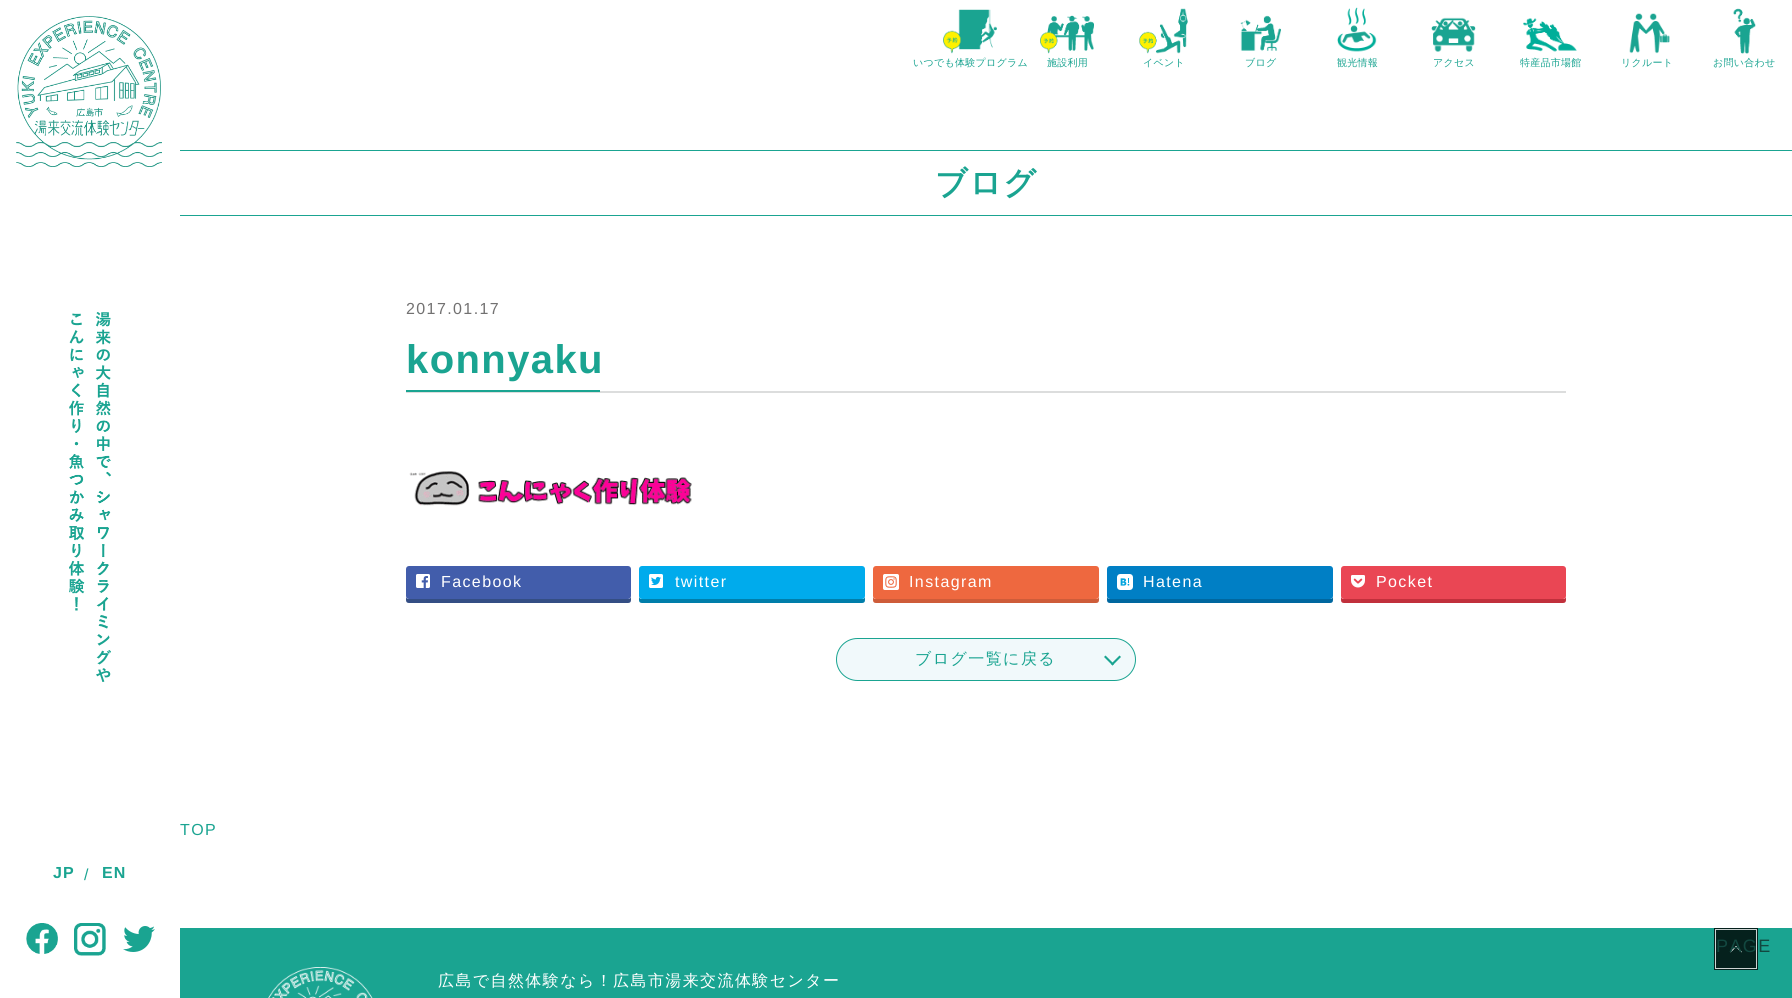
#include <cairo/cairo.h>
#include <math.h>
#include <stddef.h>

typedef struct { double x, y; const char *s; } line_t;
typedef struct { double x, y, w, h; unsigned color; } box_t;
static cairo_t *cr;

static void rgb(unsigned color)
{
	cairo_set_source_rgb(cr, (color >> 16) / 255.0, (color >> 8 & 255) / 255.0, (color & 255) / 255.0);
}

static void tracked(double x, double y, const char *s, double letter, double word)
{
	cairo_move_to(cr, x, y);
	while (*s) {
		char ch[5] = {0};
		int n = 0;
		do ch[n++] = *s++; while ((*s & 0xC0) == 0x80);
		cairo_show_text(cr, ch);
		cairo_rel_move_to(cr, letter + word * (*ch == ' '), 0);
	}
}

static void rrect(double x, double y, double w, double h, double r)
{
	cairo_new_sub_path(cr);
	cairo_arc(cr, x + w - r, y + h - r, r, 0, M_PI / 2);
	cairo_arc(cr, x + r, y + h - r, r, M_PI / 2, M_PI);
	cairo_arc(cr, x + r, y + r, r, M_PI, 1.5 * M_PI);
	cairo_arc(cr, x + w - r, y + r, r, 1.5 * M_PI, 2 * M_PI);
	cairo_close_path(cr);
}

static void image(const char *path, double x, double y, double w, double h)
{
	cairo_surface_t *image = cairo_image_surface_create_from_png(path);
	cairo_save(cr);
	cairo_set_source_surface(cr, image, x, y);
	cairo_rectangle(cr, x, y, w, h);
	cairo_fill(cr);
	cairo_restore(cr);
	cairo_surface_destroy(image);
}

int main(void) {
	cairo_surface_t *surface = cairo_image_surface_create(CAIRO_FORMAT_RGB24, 1792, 998);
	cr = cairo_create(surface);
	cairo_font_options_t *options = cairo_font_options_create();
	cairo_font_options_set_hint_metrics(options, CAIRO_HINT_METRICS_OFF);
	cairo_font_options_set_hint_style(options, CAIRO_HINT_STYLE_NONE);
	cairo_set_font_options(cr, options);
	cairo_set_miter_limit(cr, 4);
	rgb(0xffffff);
	cairo_paint(cr);
	image("img/1.png", 16, 16, 146, 151);
	image("img/2.png", 943, 9, 54, 45);
	image("img/3.png", 1040, 15, 54, 39);
	image("img/4.png", 1139, 8, 49, 46);
	image("img/5.png", 1240, 15, 41, 36);
	image("img/6.png", 1337, 7, 40, 45);
	image("img/7.png", 1431, 17, 45, 35);
	image("img/8.png", 1523, 18, 54, 34);
	image("img/9.png", 1629, 13, 41, 41);
	image("img/10.png", 1733, 8, 23, 46);
	{
		static const box_t items[] = {
			{180, 150, 1612, 1, 0x1aa491},
			{180, 215, 1612, 1, 0x1aa491},
			{406, 391, 1160, 2, 0xdcdddd},
			{406, 390, 194, 2, 0x1aa491},
		};
		for (size_t i = 0; i < sizeof items / sizeof *items; i++) {
			rgb(items[i].color);
			cairo_rectangle(cr, items[i].x, items[i].y, items[i].w, items[i].h);
			cairo_fill(cr);
		}
	}
	image("img/11.png", 409, 471, 283, 35);
	rgb(0x344e84);
	cairo_new_path(cr);
	cairo_move_to(cr, 406, 596);
	cairo_line_to(cr, 406, 600);
	cairo_curve_to(cr, 406, 602, 407, 603, 409, 603);
	cairo_line_to(cr, 628, 603);
	cairo_curve_to(cr, 630, 603, 631, 602, 631, 600);
	cairo_line_to(cr, 631, 596);
	cairo_curve_to(cr, 631, 598, 630, 599, 628, 599);
	cairo_line_to(cr, 409, 599);
	cairo_curve_to(cr, 407, 599, 406, 598, 406, 596);
	cairo_close_path(cr);
	cairo_fill(cr);
	rgb(0x425dab);
	rrect(406, 566, 225, 33, 3);
	cairo_fill(cr);
	image("img/12.png", 416, 574, 14, 14);
	rgb(0x007eaa);
	cairo_new_path(cr);
	cairo_move_to(cr, 639, 596);
	cairo_line_to(cr, 639, 600);
	cairo_curve_to(cr, 639, 602, 640, 603, 642, 603);
	cairo_line_to(cr, 862, 603);
	cairo_curve_to(cr, 864, 603, 865, 602, 865, 600);
	cairo_line_to(cr, 865, 596);
	cairo_curve_to(cr, 865, 598, 864, 599, 862, 599);
	cairo_line_to(cr, 642, 599);
	cairo_curve_to(cr, 640, 599, 639, 598, 639, 596);
	cairo_close_path(cr);
	cairo_fill(cr);
	rgb(0x00abec);
	rrect(639, 566, 226, 33, 3);
	cairo_fill(cr);
	image("img/13.png", 649, 574, 14, 14);
	rgb(0xce5c39);
	cairo_new_path(cr);
	cairo_move_to(cr, 873, 596);
	cairo_line_to(cr, 873, 600);
	cairo_curve_to(cr, 873, 602, 874, 603, 876, 603);
	cairo_line_to(cr, 1096, 603);
	cairo_curve_to(cr, 1098, 603, 1099, 602, 1099, 600);
	cairo_line_to(cr, 1099, 596);
	cairo_curve_to(cr, 1099, 598, 1098, 599, 1096, 599);
	cairo_line_to(cr, 876, 599);
	cairo_curve_to(cr, 874, 599, 873, 598, 873, 596);
	cairo_close_path(cr);
	cairo_fill(cr);
	rgb(0xee683f);
	rrect(873, 566, 226, 33, 3);
	cairo_fill(cr);
	image("img/14.png", 883, 574, 16, 16);
	rgb(0x00679f);
	cairo_new_path(cr);
	cairo_move_to(cr, 1107, 596);
	cairo_line_to(cr, 1107, 600);
	cairo_curve_to(cr, 1107, 602, 1108, 603, 1110, 603);
	cairo_line_to(cr, 1330, 603);
	cairo_curve_to(cr, 1332, 603, 1333, 602, 1333, 600);
	cairo_line_to(cr, 1333, 596);
	cairo_curve_to(cr, 1333, 598, 1332, 599, 1330, 599);
	cairo_line_to(cr, 1110, 599);
	cairo_curve_to(cr, 1108, 599, 1107, 598, 1107, 596);
	cairo_close_path(cr);
	cairo_fill(cr);
	rgb(0x007fc5);
	rrect(1107, 566, 226, 33, 3);
	cairo_fill(cr);
	image("img/15.png", 1117, 574, 16, 16);
	rgb(0xc1303c);
	cairo_new_path(cr);
	cairo_move_to(cr, 1341, 596);
	cairo_line_to(cr, 1341, 600);
	cairo_curve_to(cr, 1341, 602, 1342, 603, 1344, 603);
	cairo_line_to(cr, 1563, 603);
	cairo_curve_to(cr, 1565, 603, 1566, 602, 1566, 600);
	cairo_line_to(cr, 1566, 596);
	cairo_curve_to(cr, 1566, 598, 1565, 599, 1563, 599);
	cairo_line_to(cr, 1344, 599);
	cairo_curve_to(cr, 1342, 599, 1341, 598, 1341, 596);
	cairo_close_path(cr);
	cairo_fill(cr);
	rgb(0xea4654);
	rrect(1341, 566, 225, 33, 3);
	cairo_fill(cr);
	image("img/16.png", 1351, 575, 14, 13);
	rgb(0xf1f9fb);
	rrect(836.5, 638.5, 299, 42, 21);
	cairo_fill_preserve(cr);
	rgb(0x1aa491);
	cairo_set_line_width(cr, 1);
	cairo_stroke(cr);
	cairo_new_path(cr);
	cairo_move_to(cr, 1121, 657);
	cairo_line_to(cr, 1112.5, 665.5);
	cairo_line_to(cr, 1111, 664);
	cairo_line_to(cr, 1119.5, 655.5);
	cairo_close_path(cr);
	cairo_fill(cr);
	cairo_new_path(cr);
	cairo_move_to(cr, 1114, 664);
	cairo_line_to(cr, 1112.5, 665.5);
	cairo_line_to(cr, 1104, 657);
	cairo_line_to(cr, 1105.5, 655.5);
	cairo_close_path(cr);
	cairo_fill(cr);
	image("img/17.png", 69, 312, 42, 370);
	image("img/18.png", 26, 923, 32, 31);
	image("img/19.png", 74, 923, 32, 33);
	image("img/20.png", 123, 926, 32, 26);
	cairo_rectangle(cr, 180, 928, 1612, 70);
	cairo_fill(cr);
	image("img/21.png", 268, 967, 105, 31);
	cairo_rectangle(cr, 1715, 929, 42, 40);
	rgb(0x05211d);
	cairo_set_line_width(cr, 2);
	cairo_stroke(cr);
	cairo_rectangle(cr, 1715.5, 929.5, 41, 39);
	rgb(0xcdd3d2);
	cairo_set_line_width(cr, 1);
	cairo_stroke(cr);
	rgb(0x05211d);
	cairo_rectangle(cr, 1716, 930, 40, 38);
	cairo_fill(cr);
	image("img/22.png", 1730, 946, 12, 7);
	cairo_select_font_face(cr, "WenQuanYi Zen Hei Medium", CAIRO_FONT_SLANT_NORMAL, CAIRO_FONT_WEIGHT_NORMAL);
	cairo_set_font_size(cr, 10);
	rgb(0x1aa491);
	{
		static const line_t items[] = {
			{913, 66, "いつでも体験プログラム"},
			{1047, 66, "施設利用"},
			{1143, 66, "イベント"},
			{1245, 66, "ブログ"},
			{1337, 66, "観光情報"},
			{1433, 66, "アクセス"},
			{1520, 66, "特産品市場館"},
			{1621, 66, "リクルート"},
			{1713, 66, "お問い合わせ"},
		};
		for (size_t i = 0; i < sizeof items / sizeof *items; i++) {
			tracked(items[i].x, items[i].y, items[i].s, 0.25, 0);
		}
	}
	cairo_select_font_face(cr, "WenQuanYi Zen Hei", CAIRO_FONT_SLANT_NORMAL, CAIRO_FONT_WEIGHT_BOLD);
	cairo_set_font_size(cr, 32);
	tracked(935, 194, "ブログ", 1.4, 0);
	cairo_select_font_face(cr, "Liberation Sans", CAIRO_FONT_SLANT_NORMAL, CAIRO_FONT_WEIGHT_NORMAL);
	cairo_set_font_size(cr, 16);
	rgb(0x727171);
	tracked(406, 314, "2017.01.17", 1.4, 0);
	cairo_select_font_face(cr, "Liberation Sans", CAIRO_FONT_SLANT_NORMAL, CAIRO_FONT_WEIGHT_BOLD);
	cairo_set_font_size(cr, 40);
	rgb(0x1aa491);
	tracked(406, 373, "konnyaku", 1.4, 0);
	cairo_select_font_face(cr, "Liberation Sans", CAIRO_FONT_SLANT_NORMAL, CAIRO_FONT_WEIGHT_NORMAL);
	cairo_set_font_size(cr, 16);
	rgb(0xffffff);
	{
		static const line_t items[] = {
			{441, 587, "Facebook"},
			{675, 587, "twitter"},
			{909, 587, "Instagram"},
			{1143, 587, "Hatena"},
			{1376, 587, "Pocket"},
		};
		for (size_t i = 0; i < sizeof items / sizeof *items; i++) {
			tracked(items[i].x, items[i].y, items[i].s, 1.4, 0);
		}
	}
	cairo_select_font_face(cr, "WenQuanYi Zen Hei Medium", CAIRO_FONT_SLANT_NORMAL, CAIRO_FONT_WEIGHT_NORMAL);
	rgb(0x1aa491);
	tracked(915, 664, "ブログ一覧に戻る", 1.4, 0);
	cairo_select_font_face(cr, "Liberation Sans", CAIRO_FONT_SLANT_NORMAL, CAIRO_FONT_WEIGHT_NORMAL);
	tracked(180, 835, "TOP", 1.4, 0);
	cairo_select_font_face(cr, "Liberation Sans", CAIRO_FONT_SLANT_NORMAL, CAIRO_FONT_WEIGHT_BOLD);
	tracked(53, 878, "JP", 1, 0);
	cairo_select_font_face(cr, "Liberation Sans", CAIRO_FONT_SLANT_NORMAL, CAIRO_FONT_WEIGHT_NORMAL);
	tracked(84, 880, "/", 1, 0);
	cairo_select_font_face(cr, "Liberation Sans", CAIRO_FONT_SLANT_NORMAL, CAIRO_FONT_WEIGHT_BOLD);
	tracked(102, 878, "EN", 1, 0);
	cairo_select_font_face(cr, "WenQuanYi Zen Hei Medium", CAIRO_FONT_SLANT_NORMAL, CAIRO_FONT_WEIGHT_NORMAL);
	rgb(0xffffff);
	tracked(438, 986, "広島で自然体験なら！広島市湯来交流体験センター", 1.4, 0);
	cairo_select_font_face(cr, "Liberation Sans", CAIRO_FONT_SLANT_NORMAL, CAIRO_FONT_WEIGHT_NORMAL);
	cairo_set_font_size(cr, 18);
	rgb(0x124840);
	tracked(1716, 952, "PAGE", 1.4, 0);
	cairo_surface_write_to_png(surface, "page.png");
	cairo_font_options_destroy(options);
	cairo_destroy(cr);
	cairo_surface_destroy(surface);
	return 0;
}
